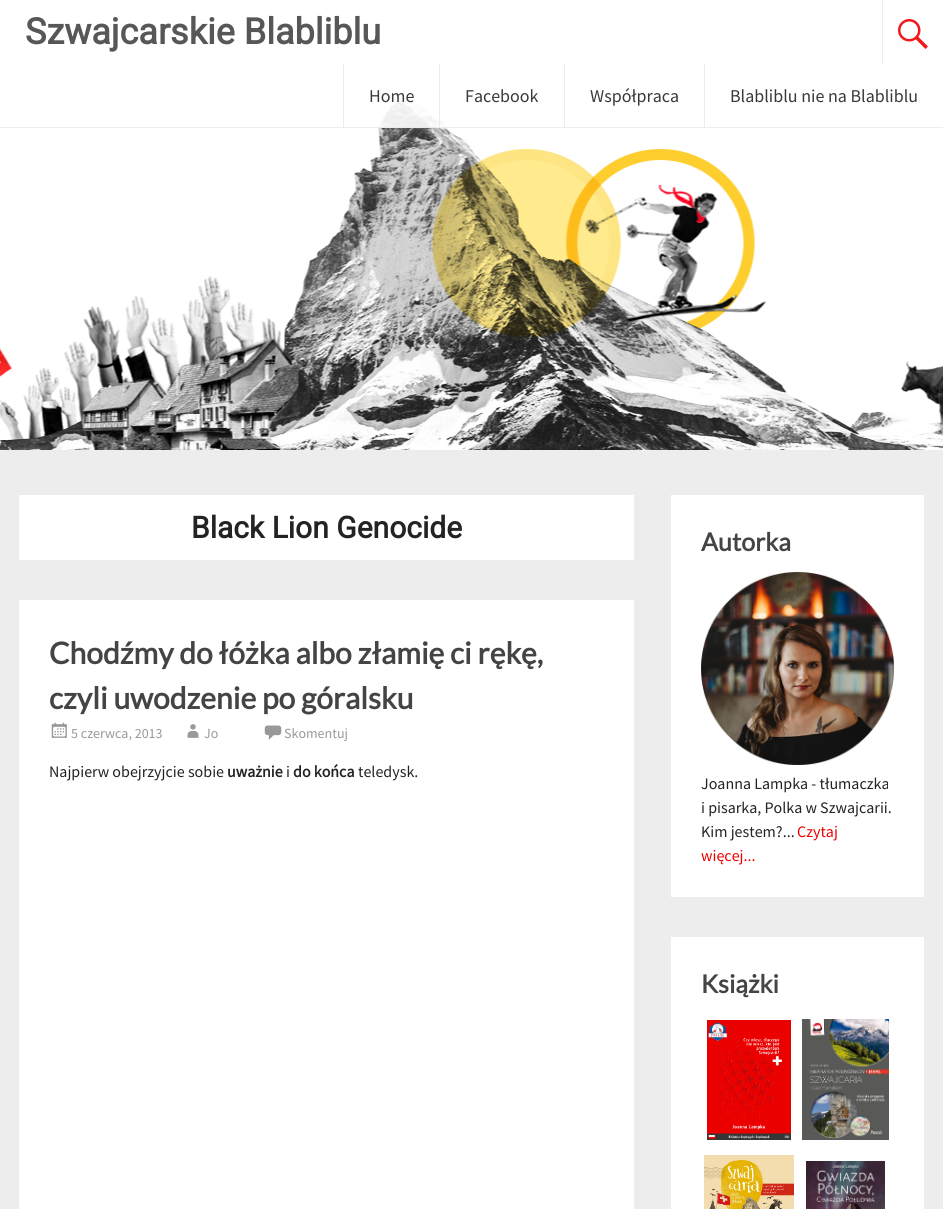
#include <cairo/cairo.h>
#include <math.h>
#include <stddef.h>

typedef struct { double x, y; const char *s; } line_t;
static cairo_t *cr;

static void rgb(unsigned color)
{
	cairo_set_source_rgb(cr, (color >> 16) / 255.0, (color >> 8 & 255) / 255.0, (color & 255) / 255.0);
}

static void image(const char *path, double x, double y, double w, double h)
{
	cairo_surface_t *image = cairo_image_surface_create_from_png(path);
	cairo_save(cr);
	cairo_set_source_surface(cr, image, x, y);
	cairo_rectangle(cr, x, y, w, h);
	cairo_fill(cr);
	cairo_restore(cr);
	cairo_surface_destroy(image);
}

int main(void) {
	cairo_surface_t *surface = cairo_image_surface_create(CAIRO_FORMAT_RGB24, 943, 1209);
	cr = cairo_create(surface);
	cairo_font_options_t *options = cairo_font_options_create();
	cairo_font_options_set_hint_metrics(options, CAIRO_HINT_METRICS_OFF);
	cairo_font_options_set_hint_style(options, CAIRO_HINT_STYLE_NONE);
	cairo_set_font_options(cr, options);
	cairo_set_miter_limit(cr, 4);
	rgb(0xededed);
	cairo_paint(cr);
	image("img/1.png", 0, 0, 943, 450);
	cairo_set_source_rgba(cr, 1, 1, 1, 0.9);
	cairo_rectangle(cr, 378, 97, 69, 31);
	cairo_fill(cr);
	cairo_set_source_rgba(cr, 0.918, 0.918, 0.918, 0.9);
	cairo_rectangle(cr, 0, 127, 943, 1);
	cairo_fill(cr);
	rgb(0xececec);
	cairo_rectangle(cr, 882, 0, 1, 64);
	cairo_fill(cr);
	image("img/2.png", 898, 19, 30, 30);
	cairo_rectangle(cr, 343, 64, 1, 63);
	cairo_fill(cr);
	cairo_set_source_rgba(cr, 0.918, 0.918, 0.918, 0.9);
	cairo_rectangle(cr, 439, 64, 1, 63);
	cairo_fill(cr);
	rgb(0xececec);
	cairo_rectangle(cr, 564, 64, 1, 63);
	cairo_fill(cr);
	cairo_rectangle(cr, 704, 64, 1, 63);
	cairo_fill(cr);
	rgb(0xffffff);
	cairo_rectangle(cr, 19, 495, 615, 65);
	cairo_fill(cr);
	cairo_rectangle(cr, 19, 600, 615, 609);
	cairo_fill(cr);
	image("img/3.png", 51, 722, 16, 16);
	image("img/4.png", 187, 724, 12, 14);
	image("img/5.png", 264, 725, 18, 15);
	cairo_rectangle(cr, 671, 495, 253, 402);
	cairo_fill(cr);
	image("img/6.png", 701, 572, 193, 193);
	cairo_rectangle(cr, 671, 937, 253, 272);
	cairo_fill(cr);
	image("img/7.png", 707, 1020, 84, 120);
	image("img/8.png", 802, 1019, 87, 121);
	image("img/9.png", 704, 1155, 90, 54);
	image("img/10.png", 806, 1161, 79, 48);
	cairo_select_font_face(cr, "Roboto", CAIRO_FONT_SLANT_NORMAL, CAIRO_FONT_WEIGHT_BOLD);
	cairo_set_font_size(cr, 36);
	rgb(0x575757);
	cairo_move_to(cr, 25, 44);
	cairo_show_text(cr, "Szwajcarskie Blabliblu");
	cairo_select_font_face(cr, "Source Sans Pro", CAIRO_FONT_SLANT_NORMAL, CAIRO_FONT_WEIGHT_NORMAL);
	cairo_set_font_size(cr, 18);
	rgb(0x393939);
	{
		static const line_t items[] = {
			{369, 102, "Home"},
			{465, 102, "Facebook"},
			{590, 102, "Współpraca"},
			{730, 102, "Blabliblu nie na Blabliblu"},
		};
		for (size_t i = 0; i < sizeof items / sizeof *items; i++) {
			cairo_move_to(cr, items[i].x, items[i].y);
			cairo_show_text(cr, items[i].s);
		}
	}
	cairo_select_font_face(cr, "Roboto", CAIRO_FONT_SLANT_NORMAL, CAIRO_FONT_WEIGHT_BOLD);
	cairo_set_font_size(cr, 30);
	rgb(0x232323);
	cairo_move_to(cr, 191, 538);
	cairo_show_text(cr, "Black Lion Genocide");
	cairo_select_font_face(cr, "Lato", CAIRO_FONT_SLANT_NORMAL, CAIRO_FONT_WEIGHT_BOLD);
	rgb(0x444444);
	cairo_move_to(cr, 49, 664);
	cairo_show_text(cr, "Chodźmy do łóżka albo złamię ci rękę,");
	cairo_move_to(cr, 49, 709);
	cairo_show_text(cr, "czyli uwodzenie po góralsku");
	cairo_select_font_face(cr, "Source Sans Pro", CAIRO_FONT_SLANT_NORMAL, CAIRO_FONT_WEIGHT_NORMAL);
	cairo_set_font_size(cr, 14);
	rgb(0x999999);
	{
		static const line_t items[] = {
			{71, 738, "5 czerwca, 2013"},
			{204, 738, "Jo"},
			{284, 738, "Skomentuj"},
		};
		for (size_t i = 0; i < sizeof items / sizeof *items; i++) {
			cairo_move_to(cr, items[i].x, items[i].y);
			cairo_show_text(cr, items[i].s);
		}
	}
	cairo_set_font_size(cr, 16);
	rgb(0x232323);
	cairo_move_to(cr, 49, 777);
	cairo_show_text(cr, "Najpierw obejrzyjcie sobie");
	cairo_select_font_face(cr, "Source Sans Pro", CAIRO_FONT_SLANT_NORMAL, CAIRO_FONT_WEIGHT_BOLD);
	cairo_move_to(cr, 227, 777);
	cairo_show_text(cr, "uważnie");
	cairo_select_font_face(cr, "Source Sans Pro", CAIRO_FONT_SLANT_NORMAL, CAIRO_FONT_WEIGHT_NORMAL);
	cairo_move_to(cr, 286, 777);
	cairo_show_text(cr, "i");
	cairo_select_font_face(cr, "Source Sans Pro", CAIRO_FONT_SLANT_NORMAL, CAIRO_FONT_WEIGHT_BOLD);
	cairo_move_to(cr, 293, 777);
	cairo_show_text(cr, "do końca");
	cairo_select_font_face(cr, "Source Sans Pro", CAIRO_FONT_SLANT_NORMAL, CAIRO_FONT_WEIGHT_NORMAL);
	cairo_move_to(cr, 358, 777);
	cairo_show_text(cr, "teledysk.");
	cairo_select_font_face(cr, "Lato", CAIRO_FONT_SLANT_NORMAL, CAIRO_FONT_WEIGHT_BOLD);
	cairo_set_font_size(cr, 25);
	rgb(0x444444);
	cairo_move_to(cr, 701, 551);
	cairo_show_text(cr, "Autorka");
	cairo_select_font_face(cr, "Source Sans Pro", CAIRO_FONT_SLANT_NORMAL, CAIRO_FONT_WEIGHT_NORMAL);
	cairo_set_font_size(cr, 16);
	rgb(0x232323);
	{
		static const line_t items[] = {
			{701, 789, "Joanna Lampka - tłumaczka"},
			{701, 813, "i pisarka, Polka w Szwajcarii."},
			{701, 837, "Kim jestem?..."},
		};
		for (size_t i = 0; i < sizeof items / sizeof *items; i++) {
			cairo_move_to(cr, items[i].x, items[i].y);
			cairo_show_text(cr, items[i].s);
		}
	}
	rgb(0xef0000);
	cairo_move_to(cr, 797, 837);
	cairo_show_text(cr, "Czytaj");
	cairo_move_to(cr, 701, 861);
	cairo_show_text(cr, "więcej...");
	cairo_select_font_face(cr, "Lato", CAIRO_FONT_SLANT_NORMAL, CAIRO_FONT_WEIGHT_BOLD);
	cairo_set_font_size(cr, 25);
	rgb(0x444444);
	cairo_move_to(cr, 701, 993);
	cairo_show_text(cr, "Książki");
	cairo_surface_write_to_png(surface, "page.png");
	cairo_font_options_destroy(options);
	cairo_destroy(cr);
	cairo_surface_destroy(surface);
	return 0;
}
